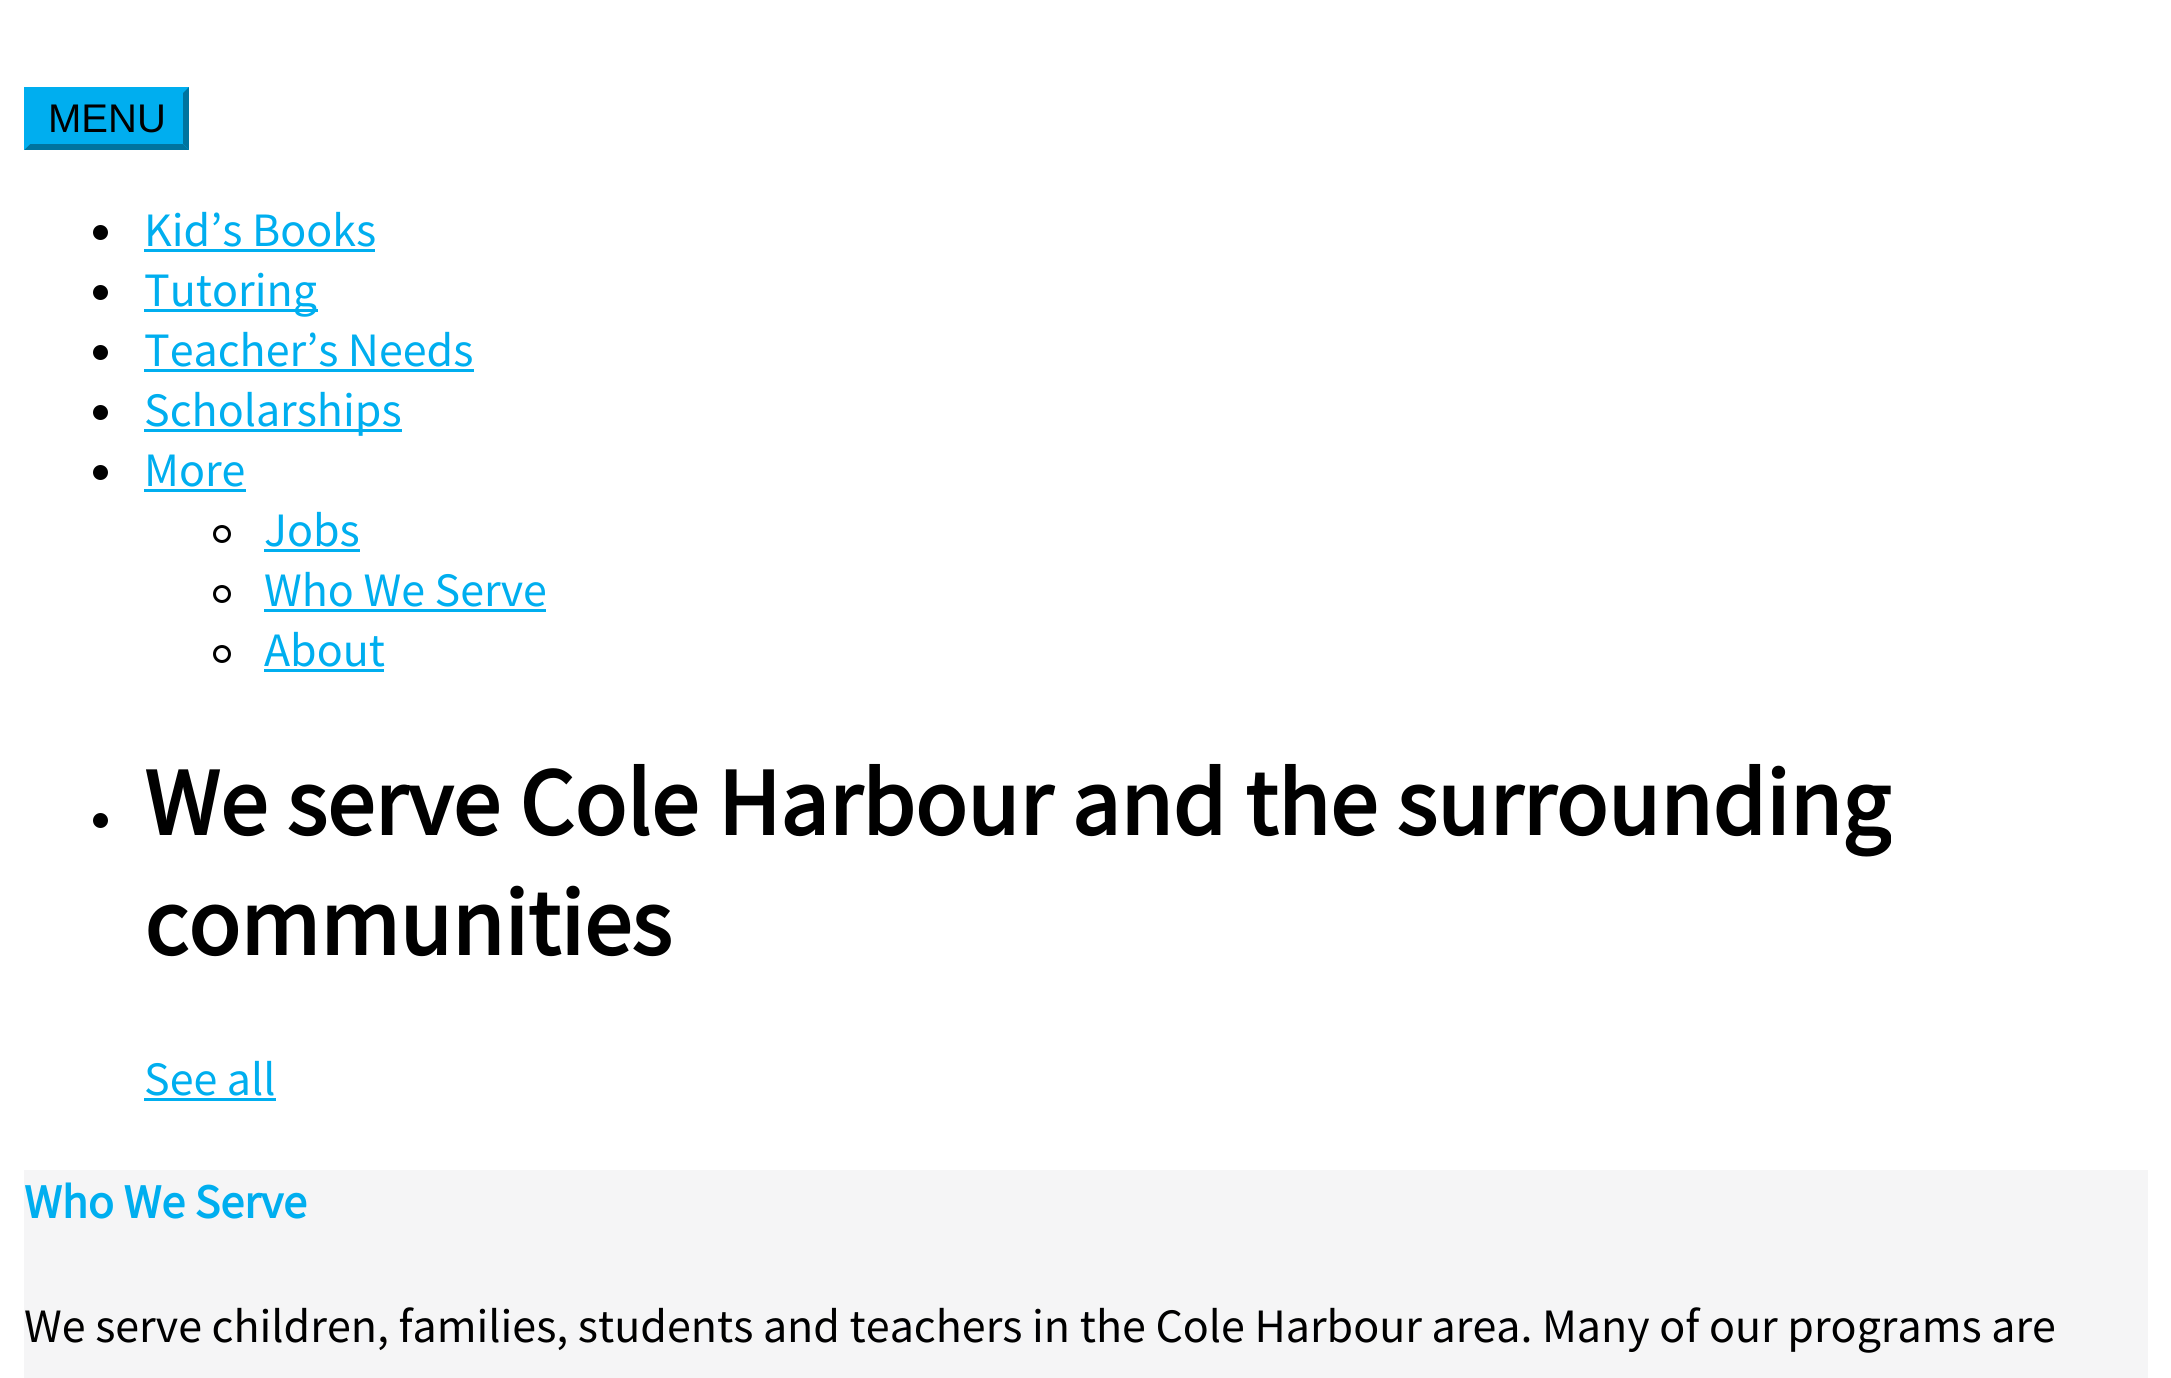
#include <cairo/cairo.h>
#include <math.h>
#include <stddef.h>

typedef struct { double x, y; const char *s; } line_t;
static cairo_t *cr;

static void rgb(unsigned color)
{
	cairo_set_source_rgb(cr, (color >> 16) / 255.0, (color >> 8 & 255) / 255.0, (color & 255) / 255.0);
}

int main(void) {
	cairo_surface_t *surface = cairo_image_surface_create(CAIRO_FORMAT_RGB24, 2171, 1378);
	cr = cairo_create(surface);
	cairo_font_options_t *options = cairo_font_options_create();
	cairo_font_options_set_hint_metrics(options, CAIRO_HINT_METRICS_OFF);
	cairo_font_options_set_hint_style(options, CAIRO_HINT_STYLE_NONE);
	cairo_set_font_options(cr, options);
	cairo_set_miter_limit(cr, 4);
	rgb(0xffffff);
	cairo_paint(cr);
	rgb(0x00aeef);
	cairo_rectangle(cr, 24, 87, 165, 63);
	cairo_fill(cr);
	rgb(0x00749f);
	cairo_new_path(cr);
	cairo_move_to(cr, 189, 87);
	cairo_line_to(cr, 189, 150);
	cairo_line_to(cr, 183, 144);
	cairo_line_to(cr, 183, 93);
	cairo_close_path(cr);
	cairo_fill(cr);
	cairo_new_path(cr);
	cairo_move_to(cr, 189, 150);
	cairo_line_to(cr, 24, 150);
	cairo_line_to(cr, 30, 144);
	cairo_line_to(cr, 183, 144);
	cairo_close_path(cr);
	cairo_fill(cr);
	rgb(0x00aeef);
	cairo_new_path(cr);
	cairo_move_to(cr, 24, 150);
	cairo_line_to(cr, 24, 87);
	cairo_line_to(cr, 30, 93);
	cairo_line_to(cr, 30, 144);
	cairo_close_path(cr);
	cairo_fill(cr);
	rgb(0x000000);
	cairo_arc(cr, 100.5, 232.5, 7.5, 0, 2 * M_PI);
	cairo_fill(cr);
	rgb(0x00aeef);
	cairo_rectangle(cr, 144, 249, 231, 3);
	cairo_fill(cr);
	rgb(0x000000);
	cairo_arc(cr, 100.5, 292.5, 7.5, 0, 2 * M_PI);
	cairo_fill(cr);
	rgb(0x00aeef);
	cairo_rectangle(cr, 144, 309, 174, 3);
	cairo_fill(cr);
	rgb(0x000000);
	cairo_arc(cr, 100.5, 352.5, 7.5, 0, 2 * M_PI);
	cairo_fill(cr);
	rgb(0x00aeef);
	cairo_rectangle(cr, 144, 369, 330, 3);
	cairo_fill(cr);
	rgb(0x000000);
	cairo_arc(cr, 100.5, 412.5, 7.5, 0, 2 * M_PI);
	cairo_fill(cr);
	rgb(0x00aeef);
	cairo_rectangle(cr, 144, 429, 258, 3);
	cairo_fill(cr);
	rgb(0x000000);
	cairo_arc(cr, 100.5, 472.5, 7.5, 0, 2 * M_PI);
	cairo_fill(cr);
	rgb(0x00aeef);
	cairo_rectangle(cr, 144, 489, 102, 3);
	cairo_fill(cr);
	cairo_arc(cr, 222, 534, 7.5, 0, 2 * M_PI);
	rgb(0x000000);
	cairo_set_line_width(cr, 3);
	cairo_stroke(cr);
	rgb(0x00aeef);
	cairo_rectangle(cr, 264, 549, 96, 3);
	cairo_fill(cr);
	cairo_arc(cr, 222, 594, 7.5, 0, 2 * M_PI);
	rgb(0x000000);
	cairo_stroke(cr);
	rgb(0x00aeef);
	cairo_rectangle(cr, 264, 609, 282, 3);
	cairo_fill(cr);
	cairo_arc(cr, 222, 654, 7.5, 0, 2 * M_PI);
	rgb(0x000000);
	cairo_stroke(cr);
	rgb(0x00aeef);
	cairo_rectangle(cr, 264, 669, 120, 3);
	cairo_fill(cr);
	rgb(0x000000);
	cairo_arc(cr, 100.5, 820.5, 7.5, 0, 2 * M_PI);
	cairo_fill(cr);
	rgb(0x00aeef);
	cairo_rectangle(cr, 144, 1098, 132, 3);
	cairo_fill(cr);
	rgb(0xf5f5f6);
	cairo_rectangle(cr, 24, 1170, 2124, 208);
	cairo_fill(cr);
	cairo_select_font_face(cr, "Liberation Sans", CAIRO_FONT_SLANT_NORMAL, CAIRO_FONT_WEIGHT_NORMAL);
	cairo_set_font_size(cr, 40);
	rgb(0x000000);
	cairo_move_to(cr, 48, 132);
	cairo_show_text(cr, "MENU");
	cairo_select_font_face(cr, "Source Sans Pro", CAIRO_FONT_SLANT_NORMAL, CAIRO_FONT_WEIGHT_NORMAL);
	cairo_set_font_size(cr, 48);
	rgb(0x00aeef);
	{
		static const line_t items[] = {
			{144, 246, "Kid’s Books"},
			{144, 306, "Tutoring"},
			{144, 366, "Teacher’s Needs"},
			{144, 426, "Scholarships"},
			{144, 486, "More"},
			{264, 546, "Jobs"},
			{264, 606, "Who We Serve"},
			{264, 666, "About"},
		};
		for (size_t i = 0; i < sizeof items / sizeof *items; i++) {
			cairo_move_to(cr, items[i].x, items[i].y);
			cairo_show_text(cr, items[i].s);
		}
	}
	cairo_select_font_face(cr, "Source Sans Pro", CAIRO_FONT_SLANT_NORMAL, CAIRO_FONT_WEIGHT_BOLD);
	cairo_set_font_size(cr, 96);
	rgb(0x000000);
	cairo_move_to(cr, 144, 835);
	cairo_show_text(cr, "We serve Cole Harbour and the surrounding");
	cairo_move_to(cr, 144, 955);
	cairo_show_text(cr, "communities");
	cairo_select_font_face(cr, "Source Sans Pro", CAIRO_FONT_SLANT_NORMAL, CAIRO_FONT_WEIGHT_NORMAL);
	cairo_set_font_size(cr, 48);
	rgb(0x00aeef);
	cairo_move_to(cr, 144, 1095);
	cairo_show_text(cr, "See all");
	cairo_select_font_face(cr, "Source Sans Pro", CAIRO_FONT_SLANT_NORMAL, CAIRO_FONT_WEIGHT_BOLD);
	cairo_move_to(cr, 24, 1218);
	cairo_show_text(cr, "Who We Serve");
	cairo_select_font_face(cr, "Source Sans Pro", CAIRO_FONT_SLANT_NORMAL, CAIRO_FONT_WEIGHT_NORMAL);
	rgb(0x000000);
	cairo_move_to(cr, 24, 1342);
	cairo_show_text(cr, "We serve children, families, students and teachers in the Cole Harbour area. Many of our programs are");
	cairo_surface_write_to_png(surface, "page.png");
	cairo_font_options_destroy(options);
	cairo_destroy(cr);
	cairo_surface_destroy(surface);
	return 0;
}
